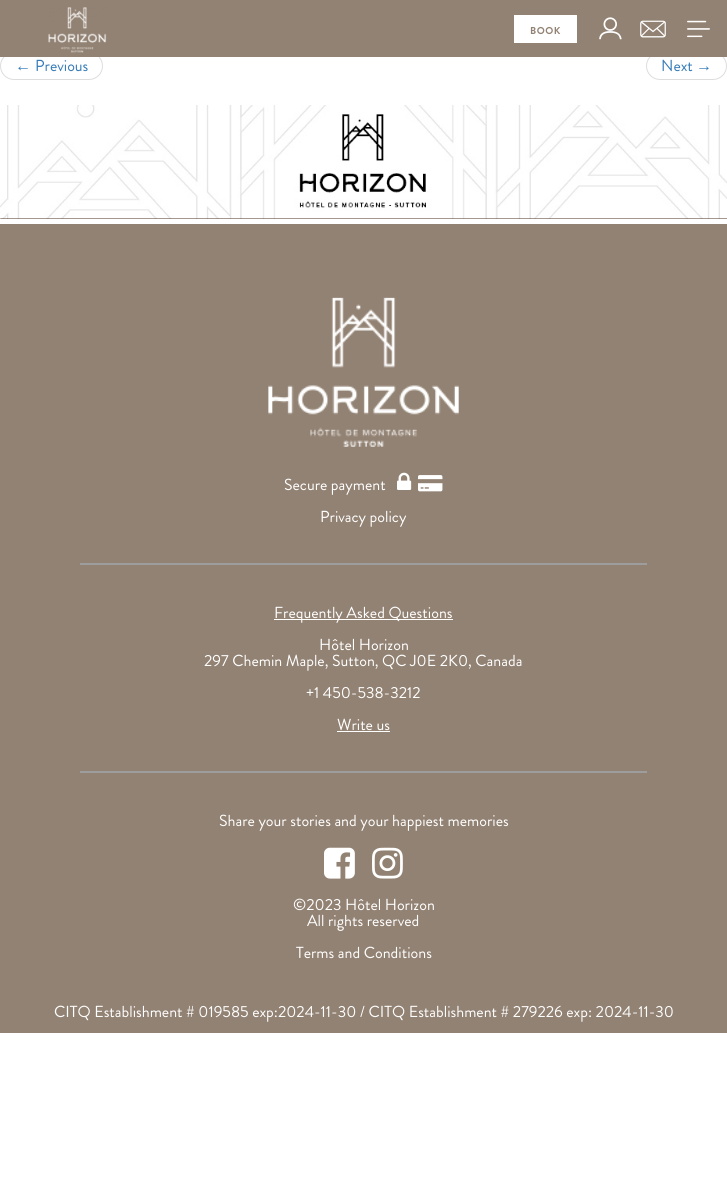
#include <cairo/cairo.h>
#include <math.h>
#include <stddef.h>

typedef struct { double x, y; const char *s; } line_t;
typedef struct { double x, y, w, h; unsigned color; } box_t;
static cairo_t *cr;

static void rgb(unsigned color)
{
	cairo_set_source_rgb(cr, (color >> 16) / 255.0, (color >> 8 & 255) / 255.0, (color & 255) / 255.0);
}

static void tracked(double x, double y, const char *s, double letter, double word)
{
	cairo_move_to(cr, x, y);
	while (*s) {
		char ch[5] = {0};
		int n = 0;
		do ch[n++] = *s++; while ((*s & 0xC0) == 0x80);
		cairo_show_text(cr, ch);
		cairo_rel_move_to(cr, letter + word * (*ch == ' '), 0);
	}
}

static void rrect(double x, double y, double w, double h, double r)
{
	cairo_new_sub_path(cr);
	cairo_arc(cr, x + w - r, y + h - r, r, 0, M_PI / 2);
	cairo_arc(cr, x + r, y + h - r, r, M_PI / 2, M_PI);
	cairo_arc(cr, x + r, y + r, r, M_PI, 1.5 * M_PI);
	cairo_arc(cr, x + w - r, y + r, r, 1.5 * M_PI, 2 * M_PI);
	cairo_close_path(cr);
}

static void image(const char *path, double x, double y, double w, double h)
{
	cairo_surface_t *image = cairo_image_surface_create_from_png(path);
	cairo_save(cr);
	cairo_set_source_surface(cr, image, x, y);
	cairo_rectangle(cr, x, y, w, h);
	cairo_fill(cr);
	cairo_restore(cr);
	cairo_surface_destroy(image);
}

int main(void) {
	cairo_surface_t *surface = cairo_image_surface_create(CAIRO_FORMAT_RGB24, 727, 1187);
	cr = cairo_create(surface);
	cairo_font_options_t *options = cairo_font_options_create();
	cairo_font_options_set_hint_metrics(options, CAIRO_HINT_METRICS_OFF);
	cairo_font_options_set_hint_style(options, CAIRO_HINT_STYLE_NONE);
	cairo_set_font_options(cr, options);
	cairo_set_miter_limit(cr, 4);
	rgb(0xffffff);
	cairo_paint(cr);
	rrect(0.5, 52.5, 102, 27, 13.5);
	rgb(0xdddddd);
	cairo_set_line_width(cr, 1);
	cairo_stroke(cr);
	rrect(646.5, 52.5, 80, 27, 13.5);
	cairo_stroke(cr);
	rgb(0x928273);
	cairo_rectangle(cr, 0, 0, 727, 57);
	cairo_fill(cr);
	image("img/1.png", 48, 7, 59, 46);
	rgb(0xffffff);
	cairo_rectangle(cr, 514, 15, 63, 28);
	cairo_fill(cr);
	image("img/2.png", 599, 17, 23, 23);
	image("img/3.png", 640, 20, 26, 18);
	image("img/4.png", 687, 20, 23, 18);
	image("img/5.png", 0, 105, 727, 114);
	rgb(0x928273);
	cairo_rectangle(cr, 0, 224, 727, 809);
	cairo_fill(cr);
	image("img/6.png", 268, 297, 191, 150);
	image("img/7.png", 397, 472, 15, 18);
	image("img/8.png", 418, 475, 25, 17);
	{
		static const box_t items[] = {
			{80, 563, 567, 2, 0x9d9d9d},
			{274, 619, 179, 1, 0xffffff},
			{337, 731, 53, 1, 0xffffff},
			{80, 771, 567, 2, 0x9d9d9d},
		};
		for (size_t i = 0; i < sizeof items / sizeof *items; i++) {
			rgb(items[i].color);
			cairo_rectangle(cr, items[i].x, items[i].y, items[i].w, items[i].h);
			cairo_fill(cr);
		}
	}
	image("img/9.png", 324, 847, 31, 32);
	image("img/10.png", 372, 847, 31, 32);
	cairo_select_font_face(cr, "Brandon Grotesque", CAIRO_FONT_SLANT_NORMAL, CAIRO_FONT_WEIGHT_BOLD);
	cairo_set_font_size(cr, 10);
	rgb(0x928273);
	tracked(530, 34, "BOOK", 0.5, 0);
	cairo_select_font_face(cr, "Liberation Serif", CAIRO_FONT_SLANT_NORMAL, CAIRO_FONT_WEIGHT_NORMAL);
	cairo_set_font_size(cr, 16);
	rgb(0x337ab7);
	cairo_move_to(cr, 15, 71);
	cairo_show_text(cr, "←");
	cairo_select_font_face(cr, "Brandon Grotesque", CAIRO_FONT_SLANT_NORMAL, CAIRO_FONT_WEIGHT_NORMAL);
	cairo_move_to(cr, 35, 71);
	cairo_show_text(cr, "Previous");
	cairo_move_to(cr, 661, 71);
	cairo_show_text(cr, "Next");
	cairo_select_font_face(cr, "Liberation Serif", CAIRO_FONT_SLANT_NORMAL, CAIRO_FONT_WEIGHT_NORMAL);
	cairo_move_to(cr, 696, 71);
	cairo_show_text(cr, "→");
	cairo_select_font_face(cr, "Brandon Grotesque", CAIRO_FONT_SLANT_NORMAL, CAIRO_FONT_WEIGHT_NORMAL);
	rgb(0xffffff);
	{
		static const line_t items[] = {
			{284, 490, "Secure payment"},
			{320, 522, "Privacy policy"},
			{274, 618, "Frequently Asked Questions"},
			{319, 650, "Hôtel Horizon"},
			{204, 666, "297 Chemin Maple, Sutton, QC J0E 2K0, Canada"},
			{306, 698, "+1 450-538-3212"},
			{337, 730, "Write us"},
			{219, 826, "Share your stories and your happiest memories"},
			{293, 910, "©2023 Hôtel Horizon"},
			{307, 926, "All rights reserved"},
			{296, 958, "Terms and Conditions"},
			{54, 1017, "CITQ Establishment # 019585 exp:2024-11-30 / CITQ Establishment # 279226 exp: 2024-11-30"},
		};
		for (size_t i = 0; i < sizeof items / sizeof *items; i++) {
			cairo_move_to(cr, items[i].x, items[i].y);
			cairo_show_text(cr, items[i].s);
		}
	}
	cairo_surface_write_to_png(surface, "page.png");
	cairo_font_options_destroy(options);
	cairo_destroy(cr);
	cairo_surface_destroy(surface);
	return 0;
}
